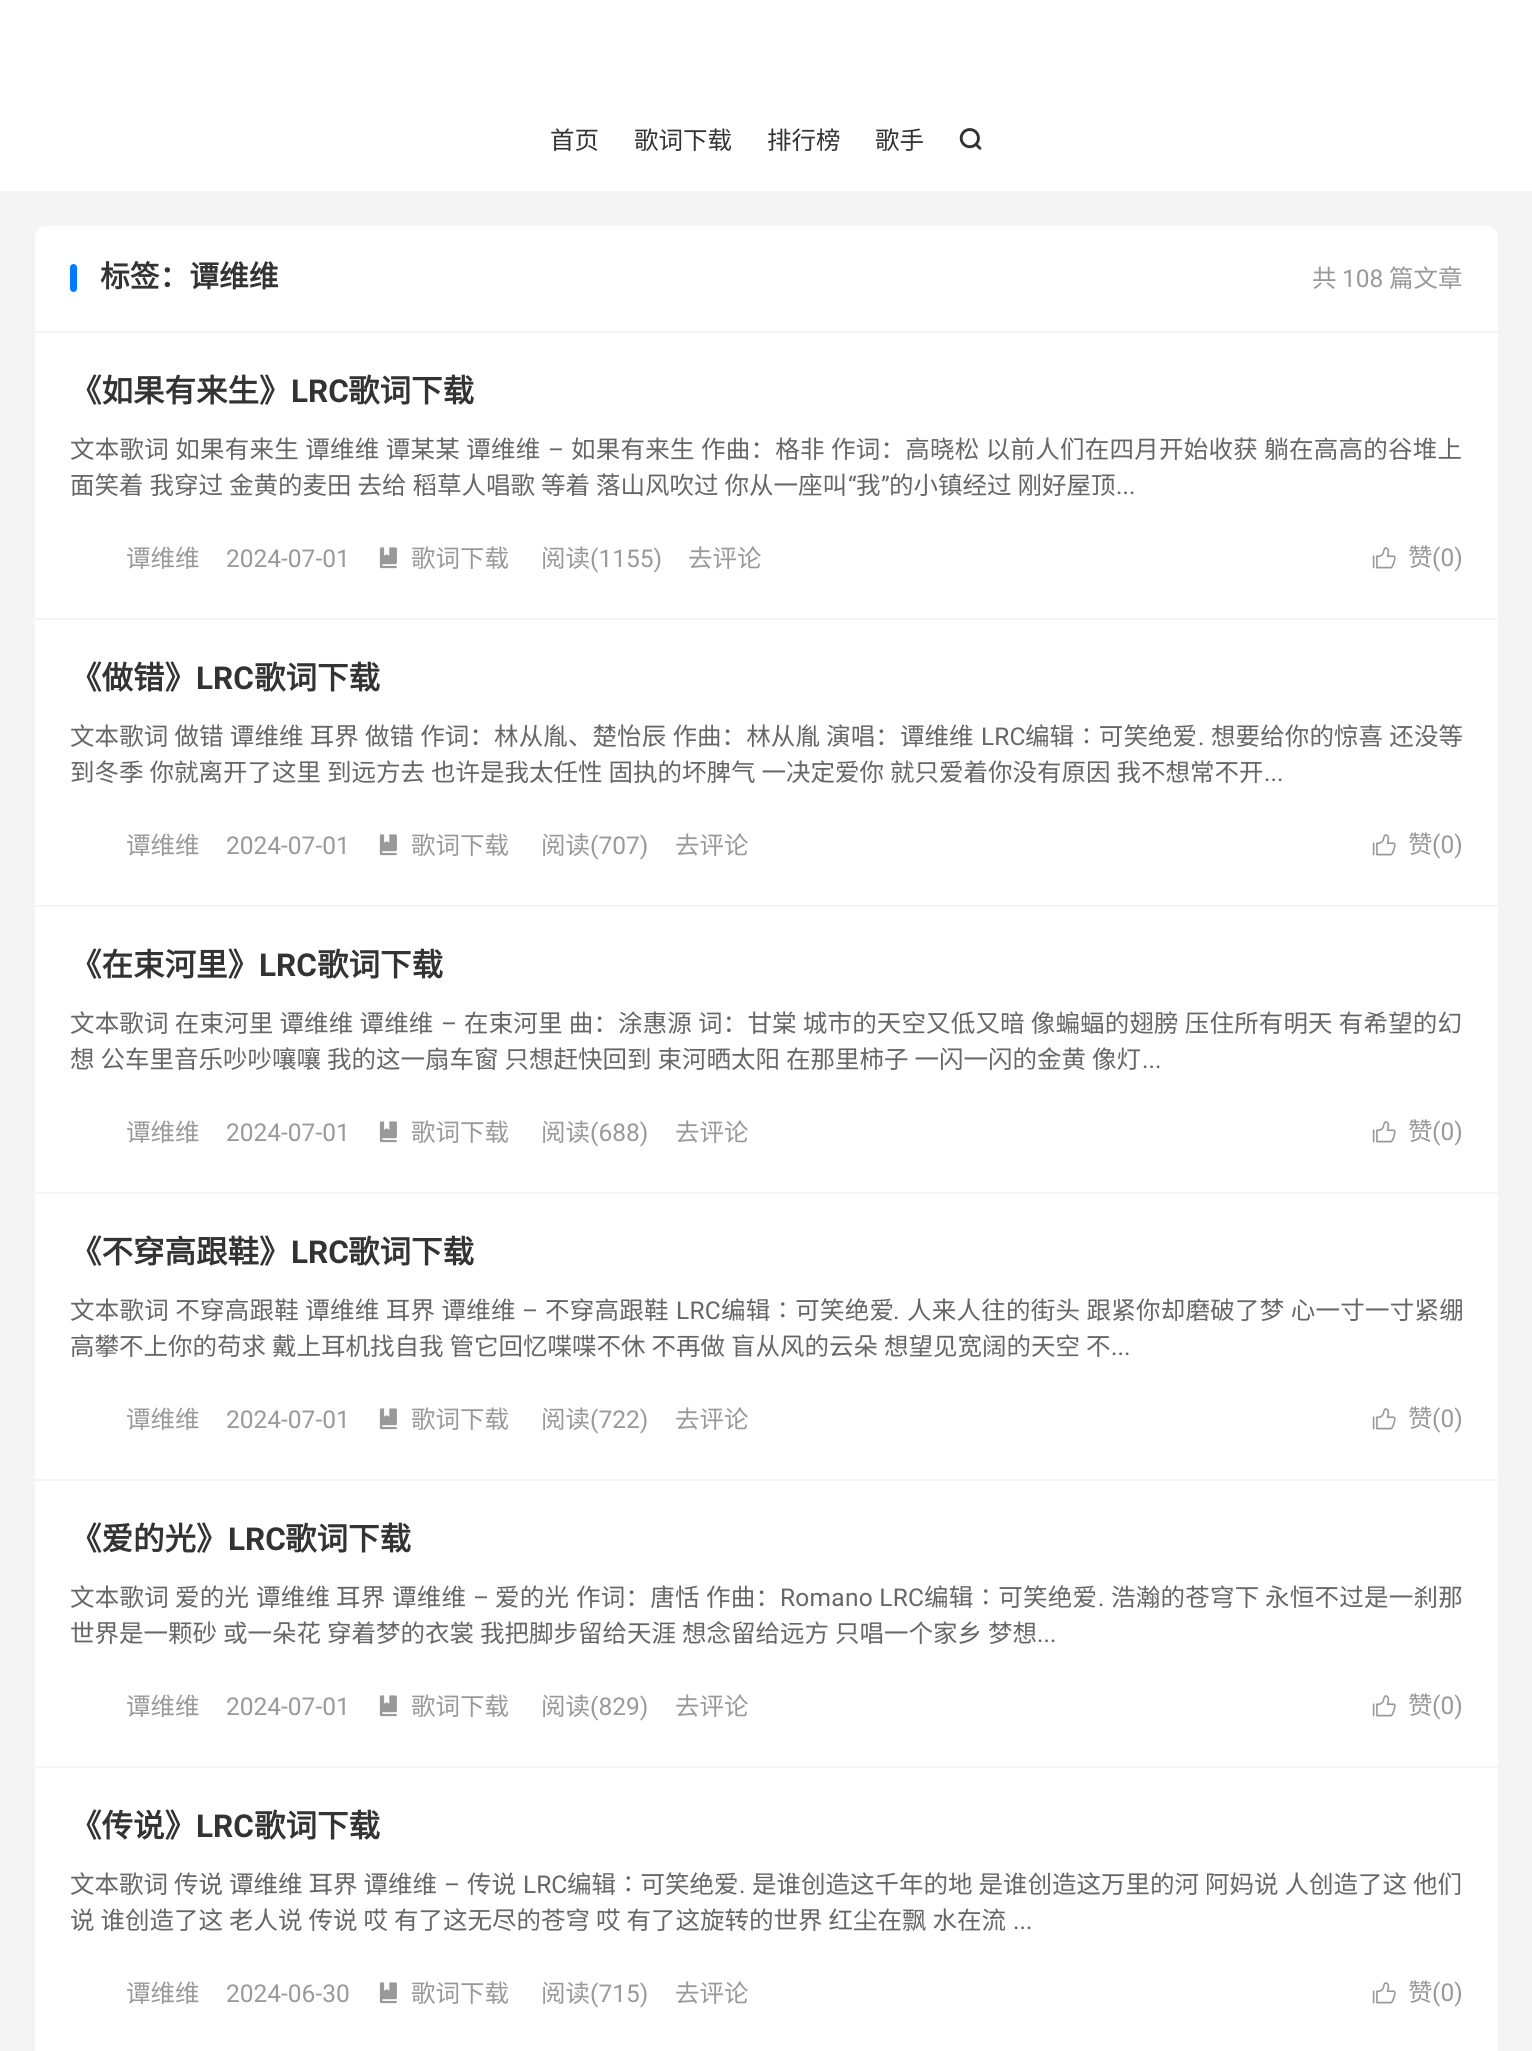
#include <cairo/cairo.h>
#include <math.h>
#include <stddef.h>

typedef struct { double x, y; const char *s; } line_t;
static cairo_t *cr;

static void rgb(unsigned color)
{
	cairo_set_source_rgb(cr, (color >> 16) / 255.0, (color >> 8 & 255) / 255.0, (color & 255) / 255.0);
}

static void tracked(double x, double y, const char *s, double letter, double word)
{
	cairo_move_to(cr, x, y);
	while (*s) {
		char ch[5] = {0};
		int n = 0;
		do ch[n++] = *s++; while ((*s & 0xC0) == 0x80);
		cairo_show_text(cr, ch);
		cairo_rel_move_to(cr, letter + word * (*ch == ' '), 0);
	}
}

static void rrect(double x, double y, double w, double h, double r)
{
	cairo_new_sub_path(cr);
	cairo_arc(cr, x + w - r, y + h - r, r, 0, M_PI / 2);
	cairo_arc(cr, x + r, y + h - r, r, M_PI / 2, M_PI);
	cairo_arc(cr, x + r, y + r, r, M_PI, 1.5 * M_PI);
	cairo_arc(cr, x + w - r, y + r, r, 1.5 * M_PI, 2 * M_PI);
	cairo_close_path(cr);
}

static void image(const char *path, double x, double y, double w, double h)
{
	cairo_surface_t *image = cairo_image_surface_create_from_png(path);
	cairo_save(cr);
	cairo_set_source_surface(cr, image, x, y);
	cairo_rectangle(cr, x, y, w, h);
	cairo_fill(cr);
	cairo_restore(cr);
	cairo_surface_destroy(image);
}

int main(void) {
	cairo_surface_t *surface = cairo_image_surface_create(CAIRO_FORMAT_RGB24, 1532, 2051);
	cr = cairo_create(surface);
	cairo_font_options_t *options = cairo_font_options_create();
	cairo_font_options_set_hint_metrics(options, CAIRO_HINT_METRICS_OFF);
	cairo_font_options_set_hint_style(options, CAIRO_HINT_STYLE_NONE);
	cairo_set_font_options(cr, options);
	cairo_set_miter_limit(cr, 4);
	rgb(0xf4f4f4);
	cairo_paint(cr);
	rgb(0xffffff);
	cairo_rectangle(cr, 0, 0, 1532, 191);
	cairo_fill(cr);
	image("img/1.png", 959, 128, 23, 22);
	cairo_new_path(cr);
	cairo_move_to(cr, 46, 226);
	cairo_line_to(cr, 1487, 226);
	cairo_curve_to(cr, 1493, 226, 1498, 231, 1498, 237);
	cairo_line_to(cr, 1498, 333);
	cairo_line_to(cr, 35, 333);
	cairo_line_to(cr, 35, 237);
	cairo_curve_to(cr, 35, 231, 40, 226, 46, 226);
	cairo_close_path(cr);
	cairo_fill(cr);
	rgb(0xf3f3f3);
	cairo_rectangle(cr, 35, 331, 1463, 2);
	cairo_fill(cr);
	rgb(0x007bff);
	rrect(70, 264, 7, 28, 3.5);
	cairo_fill(cr);
	rgb(0xffffff);
	cairo_rectangle(cr, 35, 333, 1463, 285);
	cairo_fill(cr);
	image("img/2.png", 379, 547, 18, 22);
	image("img/3.png", 1372, 547, 24, 22);
	cairo_rectangle(cr, 35, 620, 1463, 285);
	cairo_fill(cr);
	image("img/2.png", 379, 834, 18, 22);
	image("img/3.png", 1372, 834, 24, 22);
	cairo_rectangle(cr, 35, 907, 1463, 285);
	cairo_fill(cr);
	image("img/2.png", 379, 1121, 18, 22);
	image("img/3.png", 1372, 1121, 24, 22);
	cairo_rectangle(cr, 35, 1194, 1463, 285);
	cairo_fill(cr);
	image("img/2.png", 379, 1408, 18, 22);
	image("img/3.png", 1372, 1408, 24, 22);
	cairo_rectangle(cr, 35, 1481, 1463, 285);
	cairo_fill(cr);
	image("img/2.png", 379, 1695, 18, 22);
	image("img/3.png", 1372, 1695, 24, 22);
	cairo_rectangle(cr, 35, 1768, 1463, 283);
	cairo_fill(cr);
	image("img/2.png", 379, 1982, 18, 22);
	image("img/3.png", 1372, 1982, 24, 22);
	cairo_select_font_face(cr, "Noto Sans CJK SC", CAIRO_FONT_SLANT_NORMAL, CAIRO_FONT_WEIGHT_NORMAL);
	cairo_set_font_size(cr, 24.5);
	rgb(0x333333);
	{
		static const line_t items[] = {
			{550, 149, "首页"},
			{634, 149, "歌词下载"},
			{767, 149, "排行榜"},
			{875, 149, "歌手"},
		};
		for (size_t i = 0; i < sizeof items / sizeof *items; i++) {
			cairo_move_to(cr, items[i].x, items[i].y);
			cairo_show_text(cr, items[i].s);
		}
	}
	cairo_select_font_face(cr, "Noto Sans CJK SC", CAIRO_FONT_SLANT_NORMAL, CAIRO_FONT_WEIGHT_BOLD);
	cairo_set_font_size(cr, 29.75);
	cairo_move_to(cr, 100, 287);
	cairo_show_text(cr, "标签：谭维维");
	cairo_select_font_face(cr, "Noto Sans CJK SC", CAIRO_FONT_SLANT_NORMAL, CAIRO_FONT_WEIGHT_NORMAL);
	cairo_set_font_size(cr, 24.5);
	rgb(0x999999);
	cairo_move_to(cr, 1312, 287);
	cairo_show_text(cr, "共");
	cairo_select_font_face(cr, "Roboto", CAIRO_FONT_SLANT_NORMAL, CAIRO_FONT_WEIGHT_NORMAL);
	cairo_move_to(cr, 1342, 287);
	cairo_show_text(cr, "108");
	cairo_select_font_face(cr, "Noto Sans CJK SC", CAIRO_FONT_SLANT_NORMAL, CAIRO_FONT_WEIGHT_NORMAL);
	cairo_move_to(cr, 1389, 287);
	cairo_show_text(cr, "篇文章");
	cairo_select_font_face(cr, "Noto Sans CJK SC", CAIRO_FONT_SLANT_NORMAL, CAIRO_FONT_WEIGHT_BOLD);
	cairo_set_font_size(cr, 31.5);
	rgb(0x333333);
	cairo_move_to(cr, 70, 402);
	cairo_show_text(cr, "《如果有来生》");
	cairo_select_font_face(cr, "Roboto", CAIRO_FONT_SLANT_NORMAL, CAIRO_FONT_WEIGHT_BOLD);
	cairo_move_to(cr, 291, 402);
	cairo_show_text(cr, "LRC");
	cairo_select_font_face(cr, "Noto Sans CJK SC", CAIRO_FONT_SLANT_NORMAL, CAIRO_FONT_WEIGHT_BOLD);
	cairo_move_to(cr, 348, 402);
	cairo_show_text(cr, "歌词下载");
	cairo_select_font_face(cr, "Noto Sans CJK SC", CAIRO_FONT_SLANT_NORMAL, CAIRO_FONT_WEIGHT_NORMAL);
	cairo_set_font_size(cr, 24.5);
	rgb(0x666666);
	tracked(70, 458, "文本歌词 如果有来生 谭维维 谭某某 谭维维", 0.25, 0.5);
	cairo_select_font_face(cr, "Roboto", CAIRO_FONT_SLANT_NORMAL, CAIRO_FONT_WEIGHT_NORMAL);
	tracked(548, 458, "–", 0.25, 0);
	cairo_select_font_face(cr, "Noto Sans CJK SC", CAIRO_FONT_SLANT_NORMAL, CAIRO_FONT_WEIGHT_NORMAL);
	tracked(571, 458, "如果有来生 作曲：格非 作词：高晓松 以前人们在四月开始收获 躺在高高的谷堆上", 0.25, 0.5);
	tracked(70, 494, "面笑着 我穿过 金黄的麦田 去给 稻草人唱歌 等着 落山风吹过 你从一座叫", 0, 0.5);
	cairo_select_font_face(cr, "Roboto", CAIRO_FONT_SLANT_NORMAL, CAIRO_FONT_WEIGHT_NORMAL);
	cairo_move_to(cr, 848, 494);
	cairo_show_text(cr, "“");
	cairo_select_font_face(cr, "Noto Sans CJK SC", CAIRO_FONT_SLANT_NORMAL, CAIRO_FONT_WEIGHT_NORMAL);
	cairo_move_to(cr, 856, 494);
	cairo_show_text(cr, "我");
	cairo_select_font_face(cr, "Roboto", CAIRO_FONT_SLANT_NORMAL, CAIRO_FONT_WEIGHT_NORMAL);
	cairo_move_to(cr, 881, 494);
	cairo_show_text(cr, "”");
	cairo_select_font_face(cr, "Noto Sans CJK SC", CAIRO_FONT_SLANT_NORMAL, CAIRO_FONT_WEIGHT_NORMAL);
	tracked(889, 494, "的小镇经过 刚好屋顶", 0, 0.5);
	cairo_select_font_face(cr, "Roboto", CAIRO_FONT_SLANT_NORMAL, CAIRO_FONT_WEIGHT_NORMAL);
	cairo_move_to(cr, 1116, 494);
	cairo_show_text(cr, "...");
	cairo_select_font_face(cr, "Noto Sans CJK SC", CAIRO_FONT_SLANT_NORMAL, CAIRO_FONT_WEIGHT_NORMAL);
	rgb(0x999999);
	cairo_move_to(cr, 126, 567);
	cairo_show_text(cr, "谭维维");
	cairo_select_font_face(cr, "Roboto", CAIRO_FONT_SLANT_NORMAL, CAIRO_FONT_WEIGHT_NORMAL);
	cairo_move_to(cr, 226, 567);
	cairo_show_text(cr, "2024-07-01");
	cairo_select_font_face(cr, "Noto Sans CJK SC", CAIRO_FONT_SLANT_NORMAL, CAIRO_FONT_WEIGHT_NORMAL);
	cairo_move_to(cr, 411, 567);
	cairo_show_text(cr, "歌词下载");
	cairo_move_to(cr, 541, 567);
	cairo_show_text(cr, "阅读");
	cairo_select_font_face(cr, "Roboto", CAIRO_FONT_SLANT_NORMAL, CAIRO_FONT_WEIGHT_NORMAL);
	cairo_move_to(cr, 590, 567);
	cairo_show_text(cr, "(1155)");
	cairo_select_font_face(cr, "Noto Sans CJK SC", CAIRO_FONT_SLANT_NORMAL, CAIRO_FONT_WEIGHT_NORMAL);
	cairo_move_to(cr, 688, 567);
	cairo_show_text(cr, "去评论");
	cairo_move_to(cr, 1408, 566);
	cairo_show_text(cr, "赞");
	cairo_select_font_face(cr, "Roboto", CAIRO_FONT_SLANT_NORMAL, CAIRO_FONT_WEIGHT_NORMAL);
	cairo_move_to(cr, 1432, 566);
	cairo_show_text(cr, "(0)");
	cairo_select_font_face(cr, "Noto Sans CJK SC", CAIRO_FONT_SLANT_NORMAL, CAIRO_FONT_WEIGHT_BOLD);
	cairo_set_font_size(cr, 31.5);
	rgb(0x333333);
	cairo_move_to(cr, 70, 689);
	cairo_show_text(cr, "《做错》");
	cairo_select_font_face(cr, "Roboto", CAIRO_FONT_SLANT_NORMAL, CAIRO_FONT_WEIGHT_BOLD);
	cairo_move_to(cr, 196, 689);
	cairo_show_text(cr, "LRC");
	cairo_select_font_face(cr, "Noto Sans CJK SC", CAIRO_FONT_SLANT_NORMAL, CAIRO_FONT_WEIGHT_BOLD);
	cairo_move_to(cr, 254, 689);
	cairo_show_text(cr, "歌词下载");
	cairo_select_font_face(cr, "Noto Sans CJK SC", CAIRO_FONT_SLANT_NORMAL, CAIRO_FONT_WEIGHT_NORMAL);
	cairo_set_font_size(cr, 24.5);
	rgb(0x666666);
	tracked(70, 745, "文本歌词 做错 谭维维 耳界 做错 作词：林从胤、楚怡辰 作曲：林从胤 演唱：谭维维", 0.1, 0.5);
	cairo_select_font_face(cr, "Roboto", CAIRO_FONT_SLANT_NORMAL, CAIRO_FONT_WEIGHT_NORMAL);
	tracked(981, 745, "LRC", 0.1, 0);
	cairo_select_font_face(cr, "Noto Sans CJK SC", CAIRO_FONT_SLANT_NORMAL, CAIRO_FONT_WEIGHT_NORMAL);
	tracked(1025, 745, "编辑∶可笑绝爱", 0.1, 0);
	cairo_select_font_face(cr, "Roboto", CAIRO_FONT_SLANT_NORMAL, CAIRO_FONT_WEIGHT_NORMAL);
	tracked(1198, 745, ".", 0.1, 0);
	cairo_select_font_face(cr, "Noto Sans CJK SC", CAIRO_FONT_SLANT_NORMAL, CAIRO_FONT_WEIGHT_NORMAL);
	tracked(1211, 745, "想要给你的惊喜 还没等", 0.1, 0.5);
	tracked(70, 781, "到冬季 你就离开了这里 到远方去 也许是我太任性 固执的坏脾气 一决定爱你 就只爱着你没有原因 我不想常不开", 0, 0.5);
	cairo_select_font_face(cr, "Roboto", CAIRO_FONT_SLANT_NORMAL, CAIRO_FONT_WEIGHT_NORMAL);
	cairo_move_to(cr, 1264, 781);
	cairo_show_text(cr, "...");
	cairo_select_font_face(cr, "Noto Sans CJK SC", CAIRO_FONT_SLANT_NORMAL, CAIRO_FONT_WEIGHT_NORMAL);
	rgb(0x999999);
	cairo_move_to(cr, 126, 854);
	cairo_show_text(cr, "谭维维");
	cairo_select_font_face(cr, "Roboto", CAIRO_FONT_SLANT_NORMAL, CAIRO_FONT_WEIGHT_NORMAL);
	cairo_move_to(cr, 226, 854);
	cairo_show_text(cr, "2024-07-01");
	cairo_select_font_face(cr, "Noto Sans CJK SC", CAIRO_FONT_SLANT_NORMAL, CAIRO_FONT_WEIGHT_NORMAL);
	cairo_move_to(cr, 411, 854);
	cairo_show_text(cr, "歌词下载");
	cairo_move_to(cr, 541, 854);
	cairo_show_text(cr, "阅读");
	cairo_select_font_face(cr, "Roboto", CAIRO_FONT_SLANT_NORMAL, CAIRO_FONT_WEIGHT_NORMAL);
	cairo_move_to(cr, 590, 854);
	cairo_show_text(cr, "(707)");
	cairo_select_font_face(cr, "Noto Sans CJK SC", CAIRO_FONT_SLANT_NORMAL, CAIRO_FONT_WEIGHT_NORMAL);
	cairo_move_to(cr, 675, 854);
	cairo_show_text(cr, "去评论");
	cairo_move_to(cr, 1408, 853);
	cairo_show_text(cr, "赞");
	cairo_select_font_face(cr, "Roboto", CAIRO_FONT_SLANT_NORMAL, CAIRO_FONT_WEIGHT_NORMAL);
	cairo_move_to(cr, 1432, 853);
	cairo_show_text(cr, "(0)");
	cairo_select_font_face(cr, "Noto Sans CJK SC", CAIRO_FONT_SLANT_NORMAL, CAIRO_FONT_WEIGHT_BOLD);
	cairo_set_font_size(cr, 31.5);
	rgb(0x333333);
	cairo_move_to(cr, 70, 976);
	cairo_show_text(cr, "《在束河里》");
	cairo_select_font_face(cr, "Roboto", CAIRO_FONT_SLANT_NORMAL, CAIRO_FONT_WEIGHT_BOLD);
	cairo_move_to(cr, 259, 976);
	cairo_show_text(cr, "LRC");
	cairo_select_font_face(cr, "Noto Sans CJK SC", CAIRO_FONT_SLANT_NORMAL, CAIRO_FONT_WEIGHT_BOLD);
	cairo_move_to(cr, 317, 976);
	cairo_show_text(cr, "歌词下载");
	cairo_select_font_face(cr, "Noto Sans CJK SC", CAIRO_FONT_SLANT_NORMAL, CAIRO_FONT_WEIGHT_NORMAL);
	cairo_set_font_size(cr, 24.5);
	rgb(0x666666);
	tracked(70, 1032, "文本歌词 在束河里 谭维维 谭维维", 0.15, 0.5);
	cairo_select_font_face(cr, "Roboto", CAIRO_FONT_SLANT_NORMAL, CAIRO_FONT_WEIGHT_NORMAL);
	tracked(441, 1032, "–", 0.15, 0);
	cairo_select_font_face(cr, "Noto Sans CJK SC", CAIRO_FONT_SLANT_NORMAL, CAIRO_FONT_WEIGHT_NORMAL);
	tracked(464, 1032, "在束河里 曲：涂惠源 词：甘棠 城市的天空又低又暗 像蝙蝠的翅膀 压住所有明天 有希望的幻", 0.15, 0.5);
	tracked(70, 1068, "想 公车里音乐吵吵嚷嚷 我的这一扇车窗 只想赶快回到 束河晒太阳 在那里柿子 一闪一闪的金黄 像灯", 0, 0.5);
	cairo_select_font_face(cr, "Roboto", CAIRO_FONT_SLANT_NORMAL, CAIRO_FONT_WEIGHT_NORMAL);
	cairo_move_to(cr, 1142, 1068);
	cairo_show_text(cr, "...");
	cairo_select_font_face(cr, "Noto Sans CJK SC", CAIRO_FONT_SLANT_NORMAL, CAIRO_FONT_WEIGHT_NORMAL);
	rgb(0x999999);
	cairo_move_to(cr, 126, 1141);
	cairo_show_text(cr, "谭维维");
	cairo_select_font_face(cr, "Roboto", CAIRO_FONT_SLANT_NORMAL, CAIRO_FONT_WEIGHT_NORMAL);
	cairo_move_to(cr, 226, 1141);
	cairo_show_text(cr, "2024-07-01");
	cairo_select_font_face(cr, "Noto Sans CJK SC", CAIRO_FONT_SLANT_NORMAL, CAIRO_FONT_WEIGHT_NORMAL);
	cairo_move_to(cr, 411, 1141);
	cairo_show_text(cr, "歌词下载");
	cairo_move_to(cr, 541, 1141);
	cairo_show_text(cr, "阅读");
	cairo_select_font_face(cr, "Roboto", CAIRO_FONT_SLANT_NORMAL, CAIRO_FONT_WEIGHT_NORMAL);
	cairo_move_to(cr, 590, 1141);
	cairo_show_text(cr, "(688)");
	cairo_select_font_face(cr, "Noto Sans CJK SC", CAIRO_FONT_SLANT_NORMAL, CAIRO_FONT_WEIGHT_NORMAL);
	cairo_move_to(cr, 675, 1141);
	cairo_show_text(cr, "去评论");
	cairo_move_to(cr, 1408, 1140);
	cairo_show_text(cr, "赞");
	cairo_select_font_face(cr, "Roboto", CAIRO_FONT_SLANT_NORMAL, CAIRO_FONT_WEIGHT_NORMAL);
	cairo_move_to(cr, 1432, 1140);
	cairo_show_text(cr, "(0)");
	cairo_select_font_face(cr, "Noto Sans CJK SC", CAIRO_FONT_SLANT_NORMAL, CAIRO_FONT_WEIGHT_BOLD);
	cairo_set_font_size(cr, 31.5);
	rgb(0x333333);
	cairo_move_to(cr, 70, 1263);
	cairo_show_text(cr, "《不穿高跟鞋》");
	cairo_select_font_face(cr, "Roboto", CAIRO_FONT_SLANT_NORMAL, CAIRO_FONT_WEIGHT_BOLD);
	cairo_move_to(cr, 291, 1263);
	cairo_show_text(cr, "LRC");
	cairo_select_font_face(cr, "Noto Sans CJK SC", CAIRO_FONT_SLANT_NORMAL, CAIRO_FONT_WEIGHT_BOLD);
	cairo_move_to(cr, 348, 1263);
	cairo_show_text(cr, "歌词下载");
	cairo_select_font_face(cr, "Noto Sans CJK SC", CAIRO_FONT_SLANT_NORMAL, CAIRO_FONT_WEIGHT_NORMAL);
	cairo_set_font_size(cr, 24.5);
	rgb(0x666666);
	tracked(70, 1319, "文本歌词 不穿高跟鞋 谭维维 耳界 谭维维", 0.25, 0.5);
	cairo_select_font_face(cr, "Roboto", CAIRO_FONT_SLANT_NORMAL, CAIRO_FONT_WEIGHT_NORMAL);
	tracked(522, 1319, "–", 0.25, 0);
	cairo_select_font_face(cr, "Noto Sans CJK SC", CAIRO_FONT_SLANT_NORMAL, CAIRO_FONT_WEIGHT_NORMAL);
	tracked(545, 1319, "不穿高跟鞋", 0.25, 0);
	cairo_select_font_face(cr, "Roboto", CAIRO_FONT_SLANT_NORMAL, CAIRO_FONT_WEIGHT_NORMAL);
	tracked(676, 1319, "LRC", 0.25, 0);
	cairo_select_font_face(cr, "Noto Sans CJK SC", CAIRO_FONT_SLANT_NORMAL, CAIRO_FONT_WEIGHT_NORMAL);
	tracked(721, 1319, "编辑∶可笑绝爱", 0.25, 0);
	tracked(907, 1319, "人来人往的街头 跟紧你却磨破了梦 心一寸一寸紧绷", 0.25, 0.5);
	cairo_select_font_face(cr, "Roboto", CAIRO_FONT_SLANT_NORMAL, CAIRO_FONT_WEIGHT_NORMAL);
	tracked(893, 1319, ".", 0.25, 0);
	cairo_select_font_face(cr, "Noto Sans CJK SC", CAIRO_FONT_SLANT_NORMAL, CAIRO_FONT_WEIGHT_NORMAL);
	tracked(70, 1355, "高攀不上你的苟求 戴上耳机找自我 管它回忆喋喋不休 不再做 盲从风的云朵 想望见宽阔的天空 不", 0, 0.5);
	cairo_select_font_face(cr, "Roboto", CAIRO_FONT_SLANT_NORMAL, CAIRO_FONT_WEIGHT_NORMAL);
	cairo_move_to(cr, 1111, 1355);
	cairo_show_text(cr, "...");
	cairo_select_font_face(cr, "Noto Sans CJK SC", CAIRO_FONT_SLANT_NORMAL, CAIRO_FONT_WEIGHT_NORMAL);
	rgb(0x999999);
	cairo_move_to(cr, 126, 1428);
	cairo_show_text(cr, "谭维维");
	cairo_select_font_face(cr, "Roboto", CAIRO_FONT_SLANT_NORMAL, CAIRO_FONT_WEIGHT_NORMAL);
	cairo_move_to(cr, 226, 1428);
	cairo_show_text(cr, "2024-07-01");
	cairo_select_font_face(cr, "Noto Sans CJK SC", CAIRO_FONT_SLANT_NORMAL, CAIRO_FONT_WEIGHT_NORMAL);
	cairo_move_to(cr, 411, 1428);
	cairo_show_text(cr, "歌词下载");
	cairo_move_to(cr, 541, 1428);
	cairo_show_text(cr, "阅读");
	cairo_select_font_face(cr, "Roboto", CAIRO_FONT_SLANT_NORMAL, CAIRO_FONT_WEIGHT_NORMAL);
	cairo_move_to(cr, 590, 1428);
	cairo_show_text(cr, "(722)");
	cairo_select_font_face(cr, "Noto Sans CJK SC", CAIRO_FONT_SLANT_NORMAL, CAIRO_FONT_WEIGHT_NORMAL);
	cairo_move_to(cr, 675, 1428);
	cairo_show_text(cr, "去评论");
	cairo_move_to(cr, 1408, 1427);
	cairo_show_text(cr, "赞");
	cairo_select_font_face(cr, "Roboto", CAIRO_FONT_SLANT_NORMAL, CAIRO_FONT_WEIGHT_NORMAL);
	cairo_move_to(cr, 1432, 1427);
	cairo_show_text(cr, "(0)");
	cairo_select_font_face(cr, "Noto Sans CJK SC", CAIRO_FONT_SLANT_NORMAL, CAIRO_FONT_WEIGHT_BOLD);
	cairo_set_font_size(cr, 31.5);
	rgb(0x333333);
	cairo_move_to(cr, 70, 1550);
	cairo_show_text(cr, "《爱的光》");
	cairo_select_font_face(cr, "Roboto", CAIRO_FONT_SLANT_NORMAL, CAIRO_FONT_WEIGHT_BOLD);
	cairo_move_to(cr, 228, 1550);
	cairo_show_text(cr, "LRC");
	cairo_select_font_face(cr, "Noto Sans CJK SC", CAIRO_FONT_SLANT_NORMAL, CAIRO_FONT_WEIGHT_BOLD);
	cairo_move_to(cr, 285, 1550);
	cairo_show_text(cr, "歌词下载");
	cairo_select_font_face(cr, "Noto Sans CJK SC", CAIRO_FONT_SLANT_NORMAL, CAIRO_FONT_WEIGHT_NORMAL);
	cairo_set_font_size(cr, 24.5);
	rgb(0x666666);
	{
		static const line_t items[] = {
			{70, 1606, "文本歌词"},
			{175, 1606, "爱的光"},
			{256, 1606, "谭维维"},
			{336, 1606, "耳界"},
			{392, 1606, "谭维维"},
		};
		for (size_t i = 0; i < sizeof items / sizeof *items; i++) {
			tracked(items[i].x, items[i].y, items[i].s, 0.25, 0);
		}
	}
	cairo_select_font_face(cr, "Roboto", CAIRO_FONT_SLANT_NORMAL, CAIRO_FONT_WEIGHT_NORMAL);
	tracked(473, 1606, "–", 0.25, 0);
	cairo_select_font_face(cr, "Noto Sans CJK SC", CAIRO_FONT_SLANT_NORMAL, CAIRO_FONT_WEIGHT_NORMAL);
	{
		static const line_t items[] = {
			{495, 1606, "爱的光"},
			{576, 1606, "作词：唐恬"},
			{706, 1606, "作曲："},
		};
		for (size_t i = 0; i < sizeof items / sizeof *items; i++) {
			tracked(items[i].x, items[i].y, items[i].s, 0.25, 0);
		}
	}
	cairo_select_font_face(cr, "Roboto", CAIRO_FONT_SLANT_NORMAL, CAIRO_FONT_WEIGHT_NORMAL);
	tracked(780, 1606, "Romano LRC", 0.25, 0);
	cairo_select_font_face(cr, "Noto Sans CJK SC", CAIRO_FONT_SLANT_NORMAL, CAIRO_FONT_WEIGHT_NORMAL);
	{
		static const line_t items[] = {
			{924, 1606, "编辑∶可笑绝爱"},
			{1111, 1606, "浩瀚的苍穹下"},
			{1265, 1606, "永恒不过是一刹那"},
		};
		for (size_t i = 0; i < sizeof items / sizeof *items; i++) {
			tracked(items[i].x, items[i].y, items[i].s, 0.25, 0);
		}
	}
	cairo_select_font_face(cr, "Roboto", CAIRO_FONT_SLANT_NORMAL, CAIRO_FONT_WEIGHT_NORMAL);
	tracked(1098, 1606, ".", 0.25, 0);
	cairo_select_font_face(cr, "Noto Sans CJK SC", CAIRO_FONT_SLANT_NORMAL, CAIRO_FONT_WEIGHT_NORMAL);
	tracked(70, 1642, "世界是一颗砂 或一朵花 穿着梦的衣裳 我把脚步留给天涯 想念留给远方 只唱一个家乡 梦想", 0, 0.5);
	cairo_select_font_face(cr, "Roboto", CAIRO_FONT_SLANT_NORMAL, CAIRO_FONT_WEIGHT_NORMAL);
	cairo_move_to(cr, 1037, 1642);
	cairo_show_text(cr, "...");
	cairo_select_font_face(cr, "Noto Sans CJK SC", CAIRO_FONT_SLANT_NORMAL, CAIRO_FONT_WEIGHT_NORMAL);
	rgb(0x999999);
	cairo_move_to(cr, 126, 1715);
	cairo_show_text(cr, "谭维维");
	cairo_select_font_face(cr, "Roboto", CAIRO_FONT_SLANT_NORMAL, CAIRO_FONT_WEIGHT_NORMAL);
	cairo_move_to(cr, 226, 1715);
	cairo_show_text(cr, "2024-07-01");
	cairo_select_font_face(cr, "Noto Sans CJK SC", CAIRO_FONT_SLANT_NORMAL, CAIRO_FONT_WEIGHT_NORMAL);
	cairo_move_to(cr, 411, 1715);
	cairo_show_text(cr, "歌词下载");
	cairo_move_to(cr, 541, 1715);
	cairo_show_text(cr, "阅读");
	cairo_select_font_face(cr, "Roboto", CAIRO_FONT_SLANT_NORMAL, CAIRO_FONT_WEIGHT_NORMAL);
	cairo_move_to(cr, 590, 1715);
	cairo_show_text(cr, "(829)");
	cairo_select_font_face(cr, "Noto Sans CJK SC", CAIRO_FONT_SLANT_NORMAL, CAIRO_FONT_WEIGHT_NORMAL);
	cairo_move_to(cr, 675, 1715);
	cairo_show_text(cr, "去评论");
	cairo_move_to(cr, 1408, 1714);
	cairo_show_text(cr, "赞");
	cairo_select_font_face(cr, "Roboto", CAIRO_FONT_SLANT_NORMAL, CAIRO_FONT_WEIGHT_NORMAL);
	cairo_move_to(cr, 1432, 1714);
	cairo_show_text(cr, "(0)");
	cairo_select_font_face(cr, "Noto Sans CJK SC", CAIRO_FONT_SLANT_NORMAL, CAIRO_FONT_WEIGHT_BOLD);
	cairo_set_font_size(cr, 31.5);
	rgb(0x333333);
	cairo_move_to(cr, 70, 1837);
	cairo_show_text(cr, "《传说》");
	cairo_select_font_face(cr, "Roboto", CAIRO_FONT_SLANT_NORMAL, CAIRO_FONT_WEIGHT_BOLD);
	cairo_move_to(cr, 196, 1837);
	cairo_show_text(cr, "LRC");
	cairo_select_font_face(cr, "Noto Sans CJK SC", CAIRO_FONT_SLANT_NORMAL, CAIRO_FONT_WEIGHT_BOLD);
	cairo_move_to(cr, 254, 1837);
	cairo_show_text(cr, "歌词下载");
	cairo_select_font_face(cr, "Noto Sans CJK SC", CAIRO_FONT_SLANT_NORMAL, CAIRO_FONT_WEIGHT_NORMAL);
	cairo_set_font_size(cr, 24.5);
	rgb(0x666666);
	tracked(70, 1893, "文本歌词 传说 谭维维 耳界 谭维维", 0, 0.5);
	cairo_select_font_face(cr, "Roboto", CAIRO_FONT_SLANT_NORMAL, CAIRO_FONT_WEIGHT_NORMAL);
	cairo_move_to(cr, 444, 1893);
	cairo_show_text(cr, "–");
	cairo_select_font_face(cr, "Noto Sans CJK SC", CAIRO_FONT_SLANT_NORMAL, CAIRO_FONT_WEIGHT_NORMAL);
	cairo_move_to(cr, 467, 1893);
	cairo_show_text(cr, "传说");
	cairo_select_font_face(cr, "Roboto", CAIRO_FONT_SLANT_NORMAL, CAIRO_FONT_WEIGHT_NORMAL);
	cairo_move_to(cr, 523, 1893);
	cairo_show_text(cr, "LRC");
	cairo_select_font_face(cr, "Noto Sans CJK SC", CAIRO_FONT_SLANT_NORMAL, CAIRO_FONT_WEIGHT_NORMAL);
	cairo_move_to(cr, 567, 1893);
	cairo_show_text(cr, "编辑∶可笑绝爱");
	tracked(752, 1893, "是谁创造这千年的地 是谁创造这万里的河 阿妈说 人创造了这 他们", 0, 0.5);
	cairo_select_font_face(cr, "Roboto", CAIRO_FONT_SLANT_NORMAL, CAIRO_FONT_WEIGHT_NORMAL);
	cairo_move_to(cr, 739, 1893);
	cairo_show_text(cr, ".");
	cairo_select_font_face(cr, "Noto Sans CJK SC", CAIRO_FONT_SLANT_NORMAL, CAIRO_FONT_WEIGHT_NORMAL);
	tracked(70, 1929, "说 谁创造了这 老人说 传说 哎 有了这无尽的苍穹 哎 有了这旋转的世界 红尘在飘 水在流", 0, 0.5);
	cairo_select_font_face(cr, "Roboto", CAIRO_FONT_SLANT_NORMAL, CAIRO_FONT_WEIGHT_NORMAL);
	cairo_move_to(cr, 1013, 1929);
	cairo_show_text(cr, "...");
	cairo_select_font_face(cr, "Noto Sans CJK SC", CAIRO_FONT_SLANT_NORMAL, CAIRO_FONT_WEIGHT_NORMAL);
	rgb(0x999999);
	cairo_move_to(cr, 126, 2002);
	cairo_show_text(cr, "谭维维");
	cairo_select_font_face(cr, "Roboto", CAIRO_FONT_SLANT_NORMAL, CAIRO_FONT_WEIGHT_NORMAL);
	cairo_move_to(cr, 226, 2002);
	cairo_show_text(cr, "2024-06-30");
	cairo_select_font_face(cr, "Noto Sans CJK SC", CAIRO_FONT_SLANT_NORMAL, CAIRO_FONT_WEIGHT_NORMAL);
	cairo_move_to(cr, 411, 2002);
	cairo_show_text(cr, "歌词下载");
	cairo_move_to(cr, 541, 2002);
	cairo_show_text(cr, "阅读");
	cairo_select_font_face(cr, "Roboto", CAIRO_FONT_SLANT_NORMAL, CAIRO_FONT_WEIGHT_NORMAL);
	cairo_move_to(cr, 590, 2002);
	cairo_show_text(cr, "(715)");
	cairo_select_font_face(cr, "Noto Sans CJK SC", CAIRO_FONT_SLANT_NORMAL, CAIRO_FONT_WEIGHT_NORMAL);
	cairo_move_to(cr, 675, 2002);
	cairo_show_text(cr, "去评论");
	cairo_move_to(cr, 1408, 2001);
	cairo_show_text(cr, "赞");
	cairo_select_font_face(cr, "Roboto", CAIRO_FONT_SLANT_NORMAL, CAIRO_FONT_WEIGHT_NORMAL);
	cairo_move_to(cr, 1432, 2001);
	cairo_show_text(cr, "(0)");
	cairo_surface_write_to_png(surface, "page.png");
	cairo_font_options_destroy(options);
	cairo_destroy(cr);
	cairo_surface_destroy(surface);
	return 0;
}
